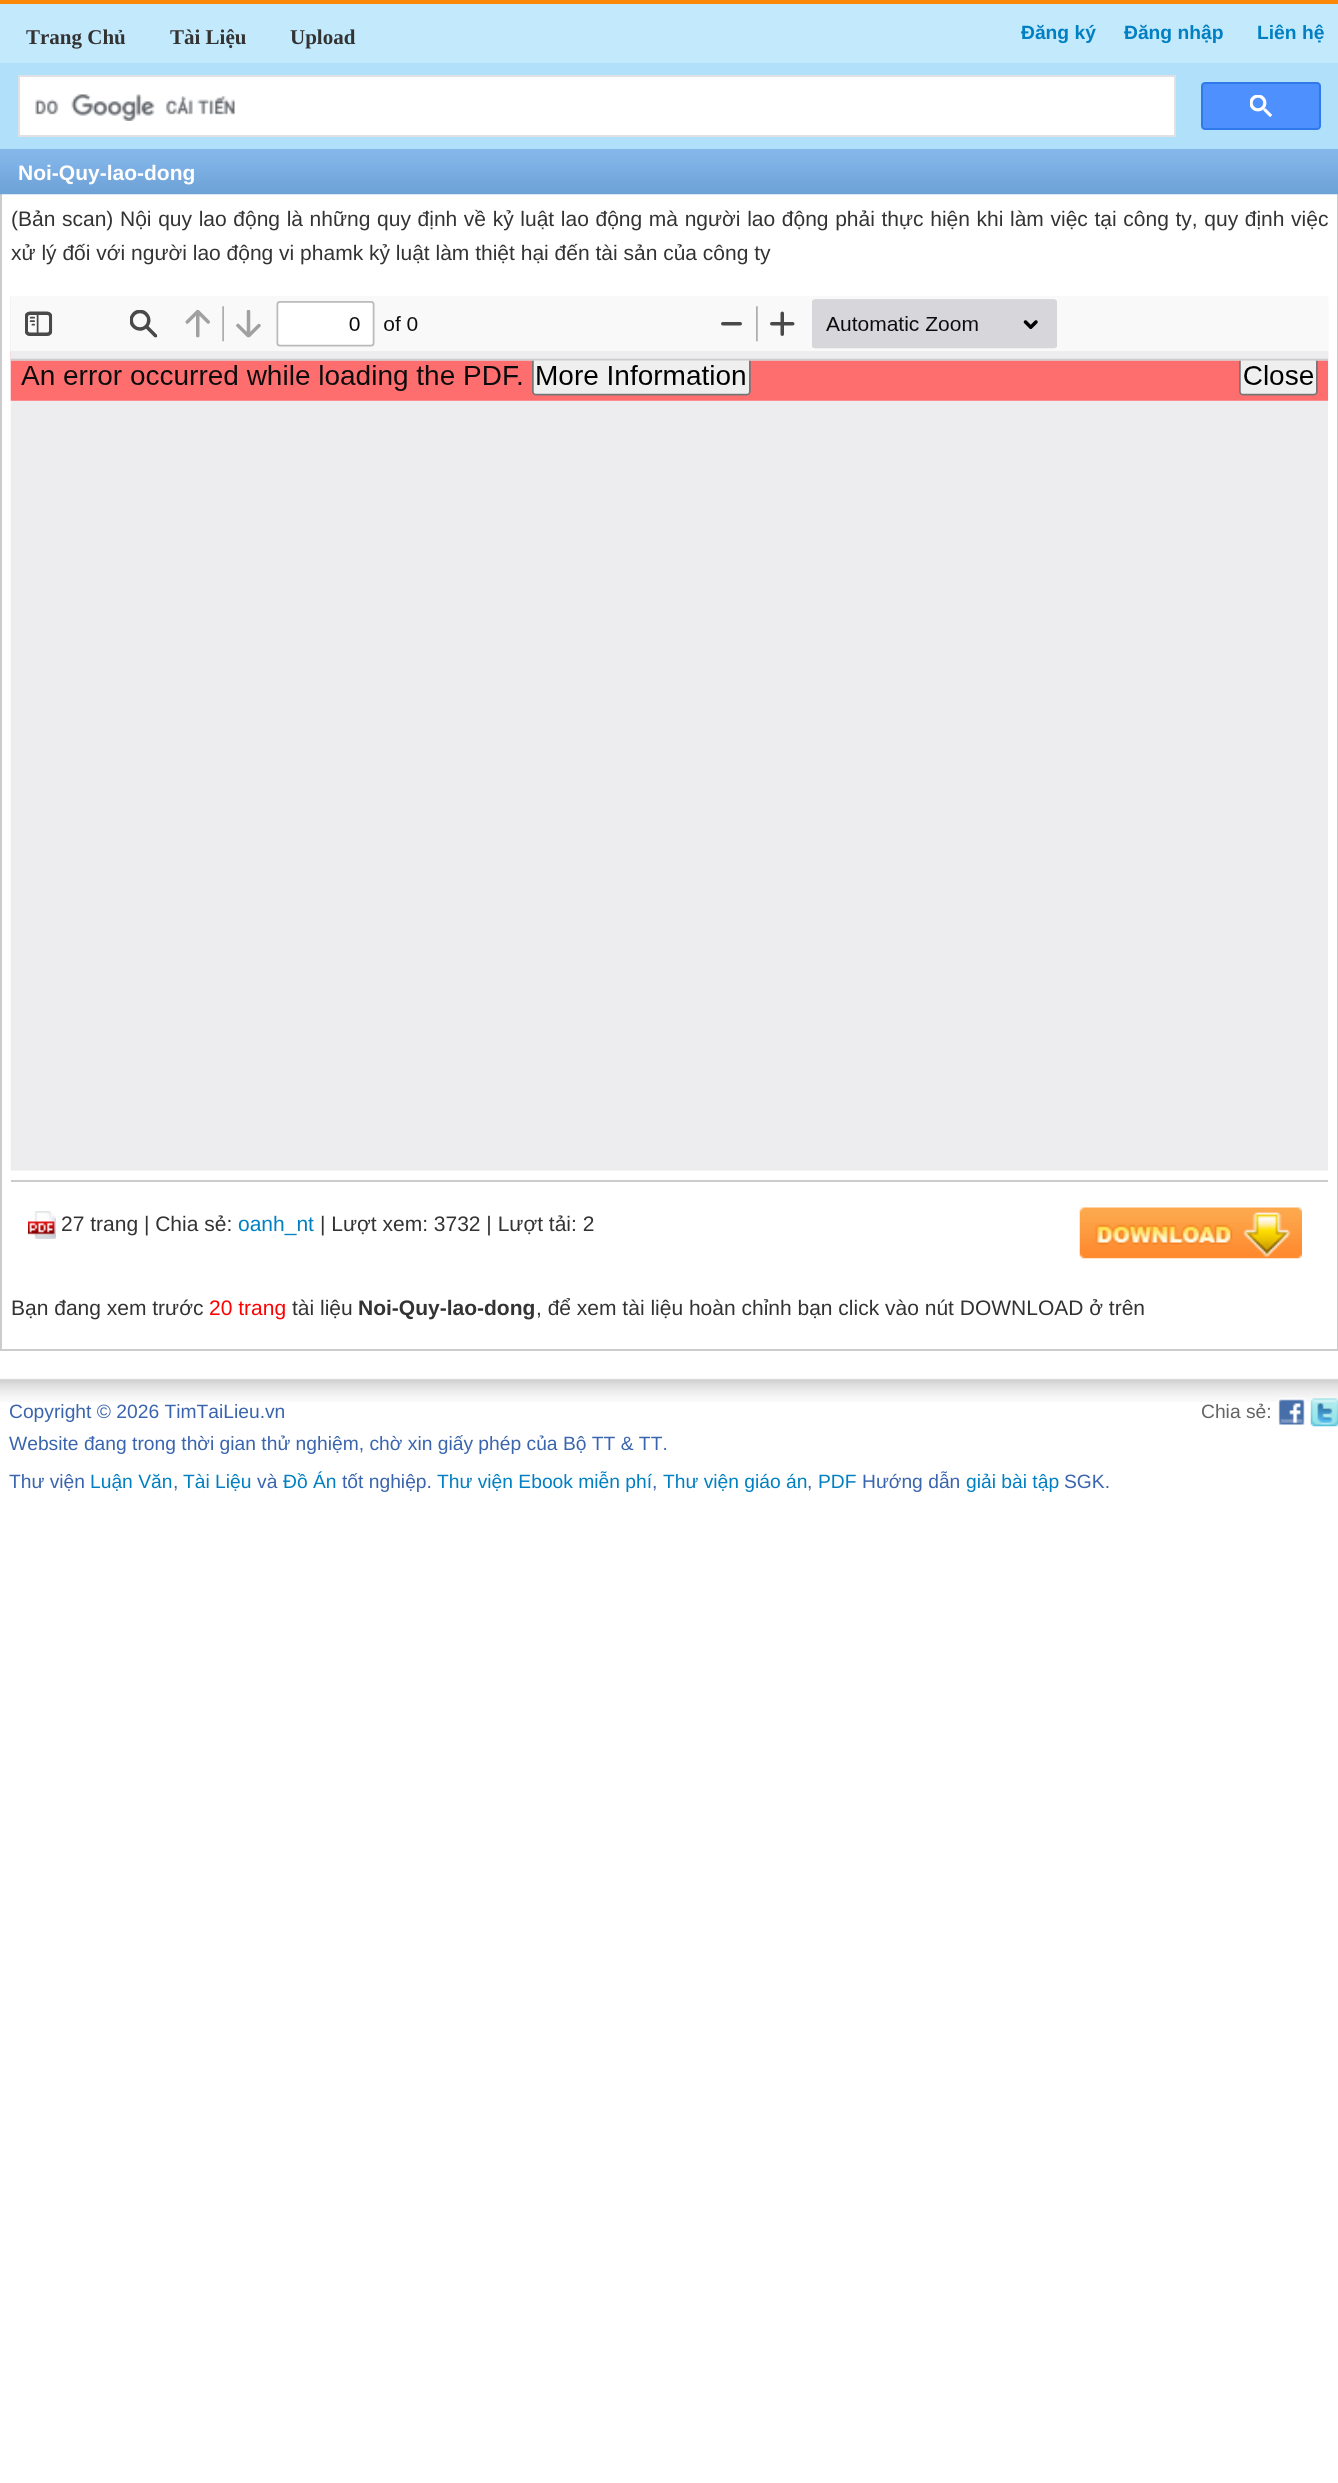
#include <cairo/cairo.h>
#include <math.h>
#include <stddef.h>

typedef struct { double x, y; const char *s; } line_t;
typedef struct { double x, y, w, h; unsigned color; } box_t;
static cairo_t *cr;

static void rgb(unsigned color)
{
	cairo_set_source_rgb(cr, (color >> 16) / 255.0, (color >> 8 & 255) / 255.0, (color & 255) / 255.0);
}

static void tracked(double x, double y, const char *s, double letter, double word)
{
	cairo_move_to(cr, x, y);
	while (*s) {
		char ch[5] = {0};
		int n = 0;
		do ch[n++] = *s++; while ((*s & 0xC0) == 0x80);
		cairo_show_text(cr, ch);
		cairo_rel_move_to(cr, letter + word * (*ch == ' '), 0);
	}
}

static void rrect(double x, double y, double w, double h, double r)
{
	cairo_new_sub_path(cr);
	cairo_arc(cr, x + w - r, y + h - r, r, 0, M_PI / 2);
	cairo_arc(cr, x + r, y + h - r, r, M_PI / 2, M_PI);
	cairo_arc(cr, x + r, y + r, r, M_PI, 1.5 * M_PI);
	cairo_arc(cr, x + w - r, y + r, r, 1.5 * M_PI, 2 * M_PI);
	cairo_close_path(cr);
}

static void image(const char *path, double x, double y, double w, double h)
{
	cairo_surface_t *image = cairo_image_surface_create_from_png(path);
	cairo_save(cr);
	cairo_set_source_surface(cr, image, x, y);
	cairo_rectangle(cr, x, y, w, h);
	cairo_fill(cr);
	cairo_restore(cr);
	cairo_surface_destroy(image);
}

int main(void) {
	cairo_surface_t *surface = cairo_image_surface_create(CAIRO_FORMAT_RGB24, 1338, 2483);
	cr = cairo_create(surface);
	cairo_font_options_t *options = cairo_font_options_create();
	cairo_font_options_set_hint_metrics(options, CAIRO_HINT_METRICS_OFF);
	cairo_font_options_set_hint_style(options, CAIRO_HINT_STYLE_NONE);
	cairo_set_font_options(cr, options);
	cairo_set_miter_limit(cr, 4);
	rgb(0xffffff);
	cairo_paint(cr);
	{
		static const box_t items[] = {
			{0, 63, 1338, 86, 0xb1e0fa},
			{0, 0, 1338, 4, 0xfc8809},
			{0, 4, 1338, 59, 0xc3e9fc},
		};
		for (size_t i = 0; i < sizeof items / sizeof *items; i++) {
			rgb(items[i].color);
			cairo_rectangle(cr, items[i].x, items[i].y, items[i].w, items[i].h);
			cairo_fill(cr);
		}
	}
	rgb(0xffffff);
	cairo_rectangle(cr, 19, 76, 1156, 60);
	cairo_fill_preserve(cr);
	rgb(0xdfe1e5);
	cairo_stroke(cr);
	image("img/1.png", 35, 94, 200, 27);
	rgb(0x4d90fe);
	rrect(1202, 83, 118, 46, 3);
	cairo_fill_preserve(cr);
	rgb(0x3079ed);
	cairo_stroke(cr);
	image("img/2.png", 1250, 95, 22, 22);
	{
		static const box_t items[] = {
			{1337, 194, 1, 1157, 0xcccccc},
			{0, 1349, 1338, 2, 0xcccccc},
			{0, 194, 2, 1157, 0xcccccc},
		};
		for (size_t i = 0; i < sizeof items / sizeof *items; i++) {
			rgb(items[i].color);
			cairo_rectangle(cr, items[i].x, items[i].y, items[i].w, items[i].h);
			cairo_fill(cr);
		}
	}
	image("img/3.png", 0, 149, 1338, 46);
	cairo_rectangle(cr, 11, 1180, 1317, 2);
	cairo_fill(cr);
	image("img/4.png", 10, 296, 1319, 875);
	image("img/5.png", 28, 1211, 28, 28);
	image("img/6.png", 1079, 1207, 223, 52);
	image("img/7.png", 0, 1378, 1338, 24);
	image("img/8.png", 1278, 1398, 27, 27);
	image("img/9.png", 1310, 1398, 28, 29);
	cairo_select_font_face(cr, "Liberation Serif", CAIRO_FONT_SLANT_NORMAL, CAIRO_FONT_WEIGHT_BOLD);
	cairo_set_font_size(cr, 21);
	rgb(0x333333);
	{
		static const line_t items[] = {
			{26, 44, "Trang Chủ"},
			{170, 44, "Tài Liệu"},
			{290, 44, "Upload"},
		};
		for (size_t i = 0; i < sizeof items / sizeof *items; i++) {
			cairo_move_to(cr, items[i].x, items[i].y);
			cairo_show_text(cr, items[i].s);
		}
	}
	cairo_select_font_face(cr, "Liberation Sans", CAIRO_FONT_SLANT_NORMAL, CAIRO_FONT_WEIGHT_BOLD);
	cairo_set_font_size(cr, 19.25);
	rgb(0x007fc2);
	{
		static const line_t items[] = {
			{1021, 39, "Đăng ký"},
			{1124, 39, "Đăng nhập"},
			{1257, 39, "Liên hệ"},
		};
		for (size_t i = 0; i < sizeof items / sizeof *items; i++) {
			cairo_move_to(cr, items[i].x, items[i].y);
			cairo_show_text(cr, items[i].s);
		}
	}
	cairo_set_font_size(cr, 21);
	rgb(0xffffff);
	cairo_move_to(cr, 18, 180);
	cairo_show_text(cr, "Noi-Quy-lao-dong");
	cairo_select_font_face(cr, "Liberation Sans", CAIRO_FONT_SLANT_NORMAL, CAIRO_FONT_WEIGHT_NORMAL);
	rgb(0x333333);
	tracked(11, 226, "(Bản scan) Nội quy lao động là những quy định về kỷ luật lao động mà người lao động phải thực hiện khi làm việc tại công ty, quy định việc", 0, 0.8);
	cairo_move_to(cr, 11, 260);
	cairo_show_text(cr, "xử lý đối với người lao động vi phamk kỷ luật làm thiệt hại đến tài sản của công ty");
	cairo_move_to(cr, 61, 1231);
	cairo_show_text(cr, "27 trang | Chia sẻ:");
	rgb(0x007fc2);
	cairo_move_to(cr, 238, 1231);
	cairo_show_text(cr, "oanh_nt");
	rgb(0x333333);
	cairo_move_to(cr, 320, 1231);
	cairo_show_text(cr, "| Lượt xem: 3732 | Lượt tải: 2");
	cairo_move_to(cr, 11, 1315);
	cairo_show_text(cr, "Bạn đang xem trước");
	rgb(0xff0000);
	cairo_move_to(cr, 209, 1315);
	cairo_show_text(cr, "20 trang");
	rgb(0x333333);
	cairo_move_to(cr, 292, 1315);
	cairo_show_text(cr, "tài liệu");
	cairo_select_font_face(cr, "Liberation Sans", CAIRO_FONT_SLANT_NORMAL, CAIRO_FONT_WEIGHT_BOLD);
	cairo_move_to(cr, 358, 1315);
	cairo_show_text(cr, "Noi-Quy-lao-dong");
	cairo_select_font_face(cr, "Liberation Sans", CAIRO_FONT_SLANT_NORMAL, CAIRO_FONT_WEIGHT_NORMAL);
	cairo_move_to(cr, 536, 1315);
	cairo_show_text(cr, ", để xem tài liệu hoàn chỉnh bạn click vào nút DOWNLOAD ở trên");
	cairo_set_font_size(cr, 19.25);
	rgb(0x3a65ae);
	cairo_move_to(cr, 9, 1418);
	cairo_show_text(cr, "Copyright © 2026 TimTaiLieu.vn");
	cairo_move_to(cr, 9, 1450);
	cairo_show_text(cr, "Website đang trong thời gian thử nghiệm, chờ xin giấy phép của Bộ TT & TT.");
	rgb(0x646464);
	cairo_move_to(cr, 1201, 1418);
	cairo_show_text(cr, "Chia sẻ:");
	rgb(0x3a65ae);
	cairo_move_to(cr, 9, 1488);
	cairo_show_text(cr, "Thư viện");
	rgb(0x007fc2);
	cairo_move_to(cr, 90, 1488);
	cairo_show_text(cr, "Luận Văn");
	rgb(0x3a65ae);
	cairo_move_to(cr, 173, 1488);
	cairo_show_text(cr, ",");
	rgb(0x007fc2);
	cairo_move_to(cr, 183, 1488);
	cairo_show_text(cr, "Tài Liệu");
	rgb(0x3a65ae);
	cairo_move_to(cr, 257, 1488);
	cairo_show_text(cr, "và");
	rgb(0x007fc2);
	cairo_move_to(cr, 283, 1488);
	cairo_show_text(cr, "Đồ Án");
	rgb(0x3a65ae);
	cairo_move_to(cr, 342, 1488);
	cairo_show_text(cr, "tốt nghiệp.");
	rgb(0x007fc2);
	cairo_move_to(cr, 437, 1488);
	cairo_show_text(cr, "Thư viện Ebook miễn phí");
	rgb(0x3a65ae);
	cairo_move_to(cr, 652, 1488);
	cairo_show_text(cr, ",");
	rgb(0x007fc2);
	cairo_move_to(cr, 663, 1488);
	cairo_show_text(cr, "Thư viện giáo án");
	rgb(0x3a65ae);
	cairo_move_to(cr, 807, 1488);
	cairo_show_text(cr, ",");
	rgb(0x007fc2);
	cairo_move_to(cr, 818, 1488);
	cairo_show_text(cr, "PDF");
	rgb(0x3a65ae);
	cairo_move_to(cr, 862, 1488);
	cairo_show_text(cr, "Hướng dẫn");
	rgb(0x007fc2);
	cairo_move_to(cr, 966, 1488);
	cairo_show_text(cr, "giải bài tập");
	rgb(0x3a65ae);
	cairo_move_to(cr, 1064, 1488);
	cairo_show_text(cr, "SGK.");
	cairo_surface_write_to_png(surface, "page.png");
	cairo_font_options_destroy(options);
	cairo_destroy(cr);
	cairo_surface_destroy(surface);
	return 0;
}
